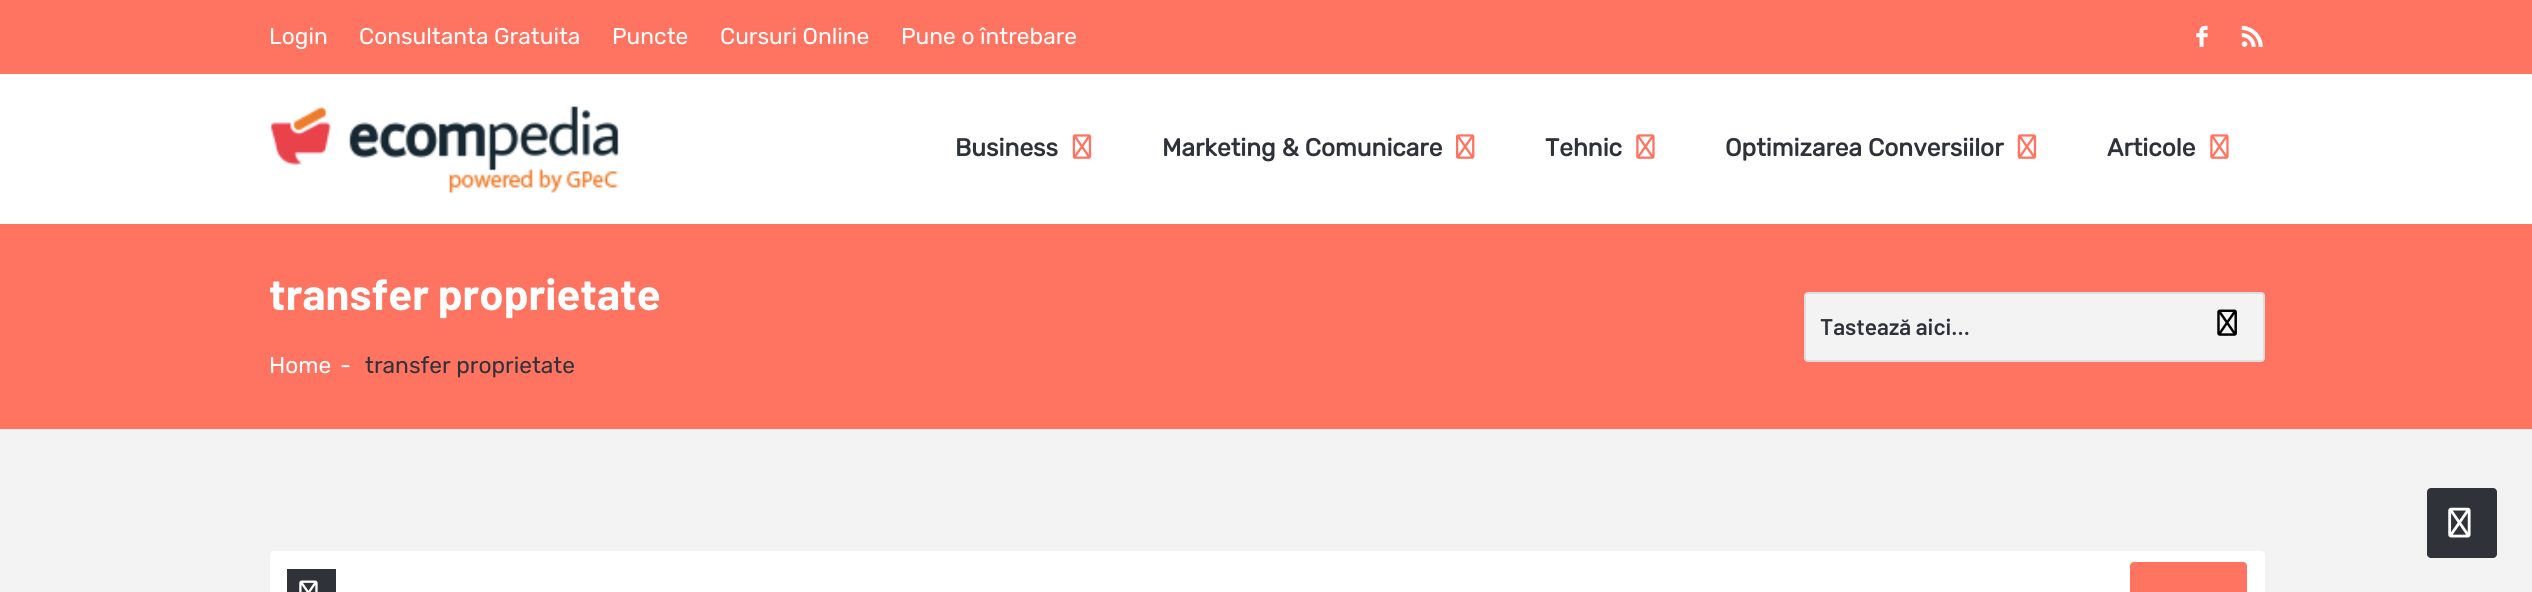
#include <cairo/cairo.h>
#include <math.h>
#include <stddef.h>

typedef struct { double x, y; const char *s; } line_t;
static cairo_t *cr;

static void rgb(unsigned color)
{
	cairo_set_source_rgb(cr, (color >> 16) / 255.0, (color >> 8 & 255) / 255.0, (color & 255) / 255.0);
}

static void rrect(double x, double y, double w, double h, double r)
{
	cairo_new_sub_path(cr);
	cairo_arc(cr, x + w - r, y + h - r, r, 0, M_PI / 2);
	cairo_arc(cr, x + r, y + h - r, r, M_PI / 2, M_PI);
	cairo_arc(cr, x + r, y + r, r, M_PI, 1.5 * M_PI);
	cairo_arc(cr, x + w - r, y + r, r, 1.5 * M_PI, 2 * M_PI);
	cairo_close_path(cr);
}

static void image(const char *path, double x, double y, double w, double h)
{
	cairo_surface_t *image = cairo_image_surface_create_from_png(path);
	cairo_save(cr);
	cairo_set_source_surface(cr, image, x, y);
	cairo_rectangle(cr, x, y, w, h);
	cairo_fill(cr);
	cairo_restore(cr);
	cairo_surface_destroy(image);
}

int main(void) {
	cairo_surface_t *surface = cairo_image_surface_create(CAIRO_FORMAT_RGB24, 2532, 592);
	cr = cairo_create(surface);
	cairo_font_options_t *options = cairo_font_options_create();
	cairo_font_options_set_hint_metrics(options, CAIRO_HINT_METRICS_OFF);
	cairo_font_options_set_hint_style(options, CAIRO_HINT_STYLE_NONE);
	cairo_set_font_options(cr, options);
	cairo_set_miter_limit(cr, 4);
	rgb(0xf3f3f3);
	cairo_paint(cr);
	rgb(0xff7361);
	cairo_rectangle(cr, 0, 0, 2532, 74);
	cairo_fill(cr);
	image("img/1.png", 2196, 25, 12, 22);
	image("img/2.png", 2241, 25, 22, 22);
	rgb(0xffffff);
	cairo_rectangle(cr, 0, 74, 2532, 150);
	cairo_fill(cr);
	image("img/3.png", 270, 106, 349, 87);
	image("img/4.png", 1072, 134, 20, 25);
	image("img/5.png", 1456, 134, 19, 25);
	image("img/6.png", 1636, 134, 19, 25);
	image("img/4.png", 2017, 134, 20, 25);
	image("img/6.png", 2210, 134, 19, 25);
	rgb(0xff7361);
	cairo_rectangle(cr, 0, 224, 2532, 205);
	cairo_fill(cr);
	rgb(0xf3f3f3);
	rrect(1805, 293, 459, 68, 3);
	cairo_fill_preserve(cr);
	rgb(0xdedede);
	cairo_stroke(cr);
	image("img/7.png", 2217, 309, 20, 27);
	rgb(0xffffff);
	rrect(270, 551, 1995, 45, 4);
	cairo_fill(cr);
	rgb(0x2f3239);
	cairo_rectangle(cr, 287, 569, 49, 23);
	cairo_fill(cr);
	image("img/8.png", 299, 580, 19, 12);
	rgb(0xff7361);
	rrect(2130, 562, 117, 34, 4);
	cairo_fill(cr);
	rgb(0x2f3239);
	rrect(2427, 488, 70, 70, 4);
	cairo_fill(cr);
	image("img/9.png", 2448, 507, 23, 31);
	cairo_select_font_face(cr, "Rubik Light", CAIRO_FONT_SLANT_NORMAL, CAIRO_FONT_WEIGHT_NORMAL);
	cairo_set_font_size(cr, 22.75);
	rgb(0xffffff);
	{
		static const line_t items[] = {
			{269, 44, "Login"},
			{359, 44, "Consultanta Gratuita"},
			{612, 44, "Puncte"},
			{720, 44, "Cursuri Online"},
			{901, 44, "Pune o întrebare"},
		};
		for (size_t i = 0; i < sizeof items / sizeof *items; i++) {
			cairo_move_to(cr, items[i].x, items[i].y);
			cairo_show_text(cr, items[i].s);
		}
	}
	cairo_select_font_face(cr, "Rubik", CAIRO_FONT_SLANT_NORMAL, CAIRO_FONT_WEIGHT_BOLD);
	cairo_set_font_size(cr, 24.5);
	rgb(0x2f3239);
	{
		static const line_t items[] = {
			{955, 156, "Business"},
			{1162, 156, "Marketing & Comunicare"},
			{1545, 156, "Tehnic"},
			{1725, 156, "Optimizarea Conversiilor"},
			{2107, 156, "Articole"},
		};
		for (size_t i = 0; i < sizeof items / sizeof *items; i++) {
			cairo_move_to(cr, items[i].x, items[i].y);
			cairo_show_text(cr, items[i].s);
		}
	}
	cairo_select_font_face(cr, "Barlow", CAIRO_FONT_SLANT_NORMAL, CAIRO_FONT_WEIGHT_BOLD);
	cairo_set_font_size(cr, 43.75);
	rgb(0xffffff);
	cairo_move_to(cr, 269, 310);
	cairo_show_text(cr, "transfer proprietate");
	cairo_select_font_face(cr, "Rubik Light", CAIRO_FONT_SLANT_NORMAL, CAIRO_FONT_WEIGHT_NORMAL);
	cairo_set_font_size(cr, 22.75);
	cairo_move_to(cr, 269, 373);
	cairo_show_text(cr, "Home");
	cairo_move_to(cr, 340, 373);
	cairo_show_text(cr, "-");
	rgb(0x2f3239);
	cairo_move_to(cr, 365, 373);
	cairo_show_text(cr, "transfer proprietate");
	cairo_select_font_face(cr, "Barlow SemiBold", CAIRO_FONT_SLANT_NORMAL, CAIRO_FONT_WEIGHT_NORMAL);
	cairo_move_to(cr, 1820, 335);
	cairo_show_text(cr, "Tastează aici...");
	cairo_surface_write_to_png(surface, "page.png");
	cairo_font_options_destroy(options);
	cairo_destroy(cr);
	cairo_surface_destroy(surface);
	return 0;
}
